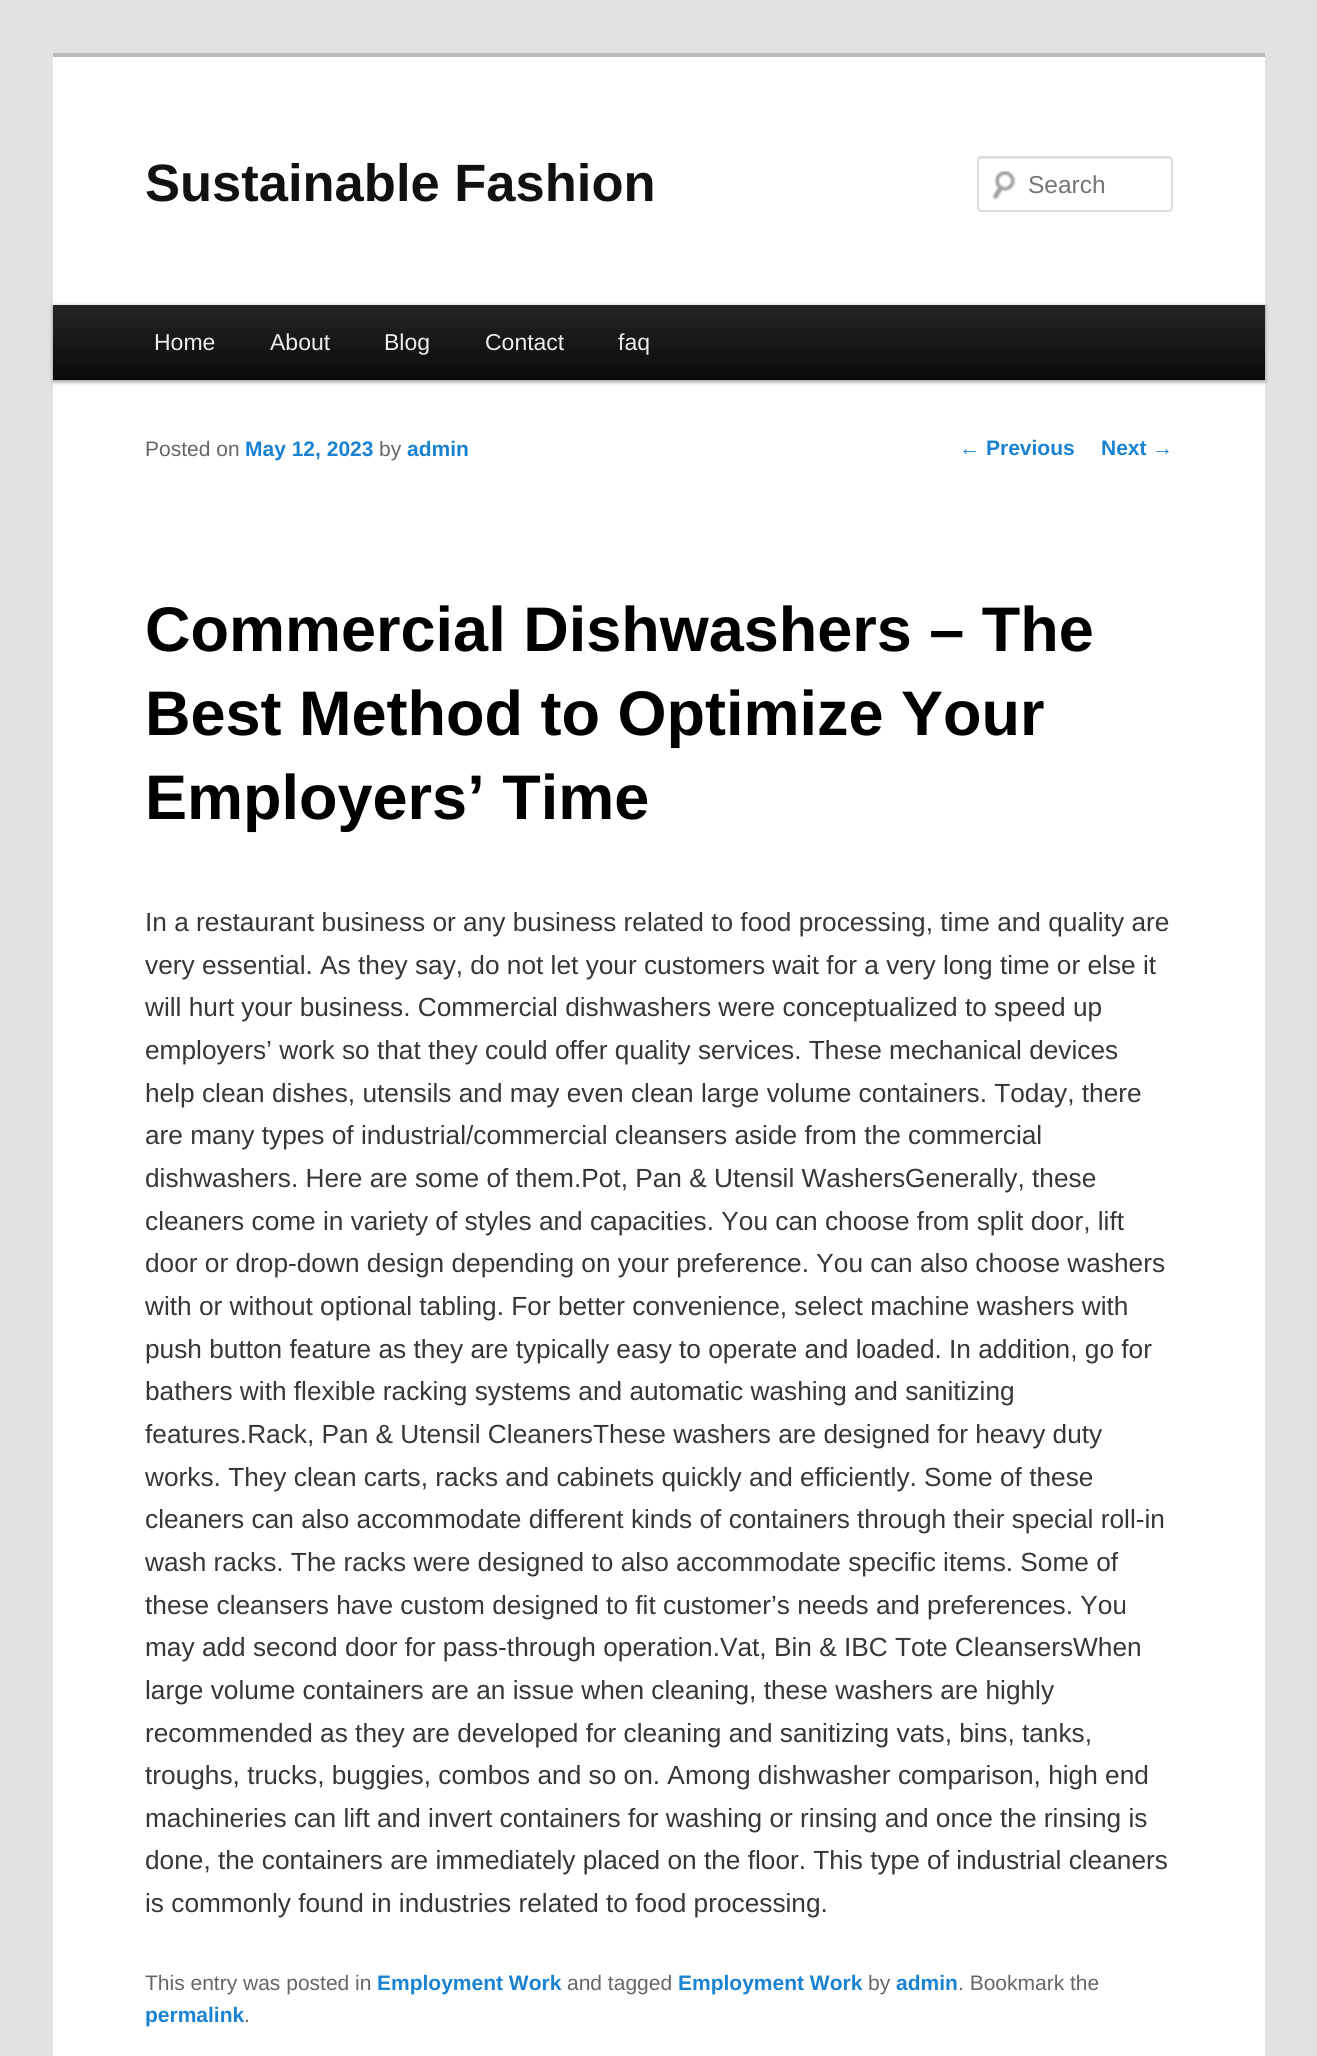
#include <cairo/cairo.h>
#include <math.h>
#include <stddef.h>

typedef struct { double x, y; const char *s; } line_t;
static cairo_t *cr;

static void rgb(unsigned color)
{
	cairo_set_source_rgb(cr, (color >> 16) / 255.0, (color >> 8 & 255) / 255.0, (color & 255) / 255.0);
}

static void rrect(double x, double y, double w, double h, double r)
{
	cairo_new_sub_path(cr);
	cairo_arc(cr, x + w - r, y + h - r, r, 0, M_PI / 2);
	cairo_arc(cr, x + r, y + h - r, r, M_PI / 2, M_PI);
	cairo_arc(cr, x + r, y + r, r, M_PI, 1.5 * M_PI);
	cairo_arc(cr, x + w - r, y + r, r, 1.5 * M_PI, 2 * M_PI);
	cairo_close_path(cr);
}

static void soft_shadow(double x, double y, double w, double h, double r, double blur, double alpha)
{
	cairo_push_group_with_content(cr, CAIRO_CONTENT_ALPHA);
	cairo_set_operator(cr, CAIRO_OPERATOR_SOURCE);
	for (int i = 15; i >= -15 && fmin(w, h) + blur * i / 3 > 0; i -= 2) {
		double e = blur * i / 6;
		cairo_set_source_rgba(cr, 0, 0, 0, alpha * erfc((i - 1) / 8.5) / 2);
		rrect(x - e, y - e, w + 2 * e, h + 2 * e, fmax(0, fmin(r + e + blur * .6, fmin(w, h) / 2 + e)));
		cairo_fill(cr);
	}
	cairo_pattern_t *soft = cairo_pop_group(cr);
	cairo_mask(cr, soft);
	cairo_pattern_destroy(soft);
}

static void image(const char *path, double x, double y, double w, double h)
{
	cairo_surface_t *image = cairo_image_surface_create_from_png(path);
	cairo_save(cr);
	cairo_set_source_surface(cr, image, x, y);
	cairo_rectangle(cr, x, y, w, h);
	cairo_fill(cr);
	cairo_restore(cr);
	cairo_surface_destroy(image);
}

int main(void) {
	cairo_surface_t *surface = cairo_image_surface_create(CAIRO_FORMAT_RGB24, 1317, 2056);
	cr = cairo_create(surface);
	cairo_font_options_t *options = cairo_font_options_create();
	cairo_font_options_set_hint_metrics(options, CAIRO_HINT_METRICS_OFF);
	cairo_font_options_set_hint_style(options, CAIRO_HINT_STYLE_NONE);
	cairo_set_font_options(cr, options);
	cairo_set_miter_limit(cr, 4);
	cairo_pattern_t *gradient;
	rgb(0xe2e2e2);
	cairo_paint(cr);
	rgb(0xffffff);
	cairo_rectangle(cr, 53, 57, 1212, 1999);
	cairo_fill(cr);
	rgb(0xbbbbbb);
	cairo_rectangle(cr, 53, 53, 1212, 4);
	cairo_fill(cr);
	image("img/1.png", 992, 170, 24, 30);
	rgb(0xe6e6e6);
	cairo_new_path(cr);
	cairo_move_to(cr, 980, 159);
	cairo_line_to(cr, 1169, 159);
	cairo_line_to(cr, 1171, 160);
	cairo_line_to(cr, 1171, 161);
	cairo_line_to(cr, 1171, 160);
	cairo_curve_to(cr, 1171, 159, 1170, 158, 1169, 158);
	cairo_line_to(cr, 980, 158);
	cairo_curve_to(cr, 979, 158, 978, 159, 978, 160);
	cairo_line_to(cr, 978, 161);
	cairo_curve_to(cr, 978, 160, 979, 159, 980, 159);
	cairo_close_path(cr);
	cairo_fill(cr);
	rrect(978, 157, 194, 54, 3);
	rgb(0xdddddd);
	cairo_stroke(cr);
	rgb(0x000000);
	soft_shadow(53, 306, 1212, 76, 0, 2, 0.4);
	gradient = cairo_pattern_create_linear(659, 304, 659, 380);
	cairo_pattern_add_color_stop_rgba(gradient, 0, 0.145, 0.145, 0.145, 1);
	cairo_pattern_add_color_stop_rgba(gradient, 1, 0.039, 0.039, 0.039, 1);
	cairo_set_source(cr, gradient);
	cairo_pattern_destroy(gradient);
	cairo_rectangle(cr, 53, 305, 1212, 75);
	cairo_fill(cr);
	cairo_select_font_face(cr, "Liberation Sans", CAIRO_FONT_SLANT_NORMAL, CAIRO_FONT_WEIGHT_BOLD);
	cairo_set_font_size(cr, 52.5);
	rgb(0x111111);
	cairo_move_to(cr, 145, 201);
	cairo_show_text(cr, "Sustainable Fashion");
	cairo_select_font_face(cr, "Liberation Sans", CAIRO_FONT_SLANT_NORMAL, CAIRO_FONT_WEIGHT_NORMAL);
	cairo_set_font_size(cr, 24.5);
	rgb(0x757575);
	cairo_move_to(cr, 1028, 193);
	cairo_show_text(cr, "Search");
	cairo_set_font_size(cr, 23);
	rgb(0xeeeeee);
	{
		static const line_t items[] = {
			{154, 350, "Home"},
			{270, 350, "About"},
			{384, 350, "Blog"},
			{485, 350, "Contact"},
			{618, 350, "faq"},
		};
		for (size_t i = 0; i < sizeof items / sizeof *items; i++) {
			cairo_move_to(cr, items[i].x, items[i].y);
			cairo_show_text(cr, items[i].s);
		}
	}
	cairo_set_font_size(cr, 21);
	rgb(0x1982d1);
	cairo_move_to(cr, 959, 455);
	cairo_show_text(cr, "←");
	cairo_select_font_face(cr, "Liberation Sans", CAIRO_FONT_SLANT_NORMAL, CAIRO_FONT_WEIGHT_BOLD);
	cairo_move_to(cr, 986, 455);
	cairo_show_text(cr, "Previous");
	cairo_move_to(cr, 1101, 455);
	cairo_show_text(cr, "Next");
	cairo_select_font_face(cr, "Liberation Sans", CAIRO_FONT_SLANT_NORMAL, CAIRO_FONT_WEIGHT_NORMAL);
	cairo_move_to(cr, 1152, 455);
	cairo_show_text(cr, "→");
	rgb(0x666666);
	cairo_move_to(cr, 145, 456);
	cairo_show_text(cr, "Posted on");
	cairo_select_font_face(cr, "Liberation Sans", CAIRO_FONT_SLANT_NORMAL, CAIRO_FONT_WEIGHT_BOLD);
	rgb(0x1982d1);
	cairo_move_to(cr, 245, 456);
	cairo_show_text(cr, "May 12, 2023");
	cairo_select_font_face(cr, "Liberation Sans", CAIRO_FONT_SLANT_NORMAL, CAIRO_FONT_WEIGHT_NORMAL);
	rgb(0x666666);
	cairo_move_to(cr, 379, 456);
	cairo_show_text(cr, "by");
	cairo_select_font_face(cr, "Liberation Sans", CAIRO_FONT_SLANT_NORMAL, CAIRO_FONT_WEIGHT_BOLD);
	rgb(0x1982d1);
	cairo_move_to(cr, 407, 456);
	cairo_show_text(cr, "admin");
	cairo_set_font_size(cr, 63);
	rgb(0x000000);
	{
		static const line_t items[] = {
			{145, 651, "Commercial Dishwashers – The"},
			{145, 735, "Best Method to Optimize Your"},
			{145, 819, "Employers’ Time"},
		};
		for (size_t i = 0; i < sizeof items / sizeof *items; i++) {
			cairo_move_to(cr, items[i].x, items[i].y);
			cairo_show_text(cr, items[i].s);
		}
	}
	cairo_select_font_face(cr, "Liberation Sans", CAIRO_FONT_SLANT_NORMAL, CAIRO_FONT_WEIGHT_NORMAL);
	cairo_set_font_size(cr, 26.25);
	rgb(0x373737);
	{
		static const line_t items[] = {
			{145, 931, "In a restaurant business or any business related to food processing, time and quality are"},
			{145, 974, "very essential. As they say, do not let your customers wait for a very long time or else it"},
			{145, 1016, "will hurt your business. Commercial dishwashers were conceptualized to speed up"},
			{145, 1059, "employers’ work so that they could offer quality services. These mechanical devices"},
			{145, 1102, "help clean dishes, utensils and may even clean large volume containers. Today, there"},
			{145, 1144, "are many types of industrial/commercial cleansers aside from the commercial"},
			{145, 1187, "dishwashers. Here are some of them.Pot, Pan & Utensil WashersGenerally, these"},
			{145, 1230, "cleaners come in variety of styles and capacities. You can choose from split door, lift"},
			{145, 1272, "door or drop-down design depending on your preference. You can also choose washers"},
			{145, 1315, "with or without optional tabling. For better convenience, select machine washers with"},
			{145, 1358, "push button feature as they are typically easy to operate and loaded. In addition, go for"},
			{145, 1400, "bathers with flexible racking systems and automatic washing and sanitizing"},
			{145, 1443, "features.Rack, Pan & Utensil CleanersThese washers are designed for heavy duty"},
			{145, 1486, "works. They clean carts, racks and cabinets quickly and efficiently. Some of these"},
			{145, 1528, "cleaners can also accommodate different kinds of containers through their special roll-in"},
			{145, 1571, "wash racks. The racks were designed to also accommodate specific items. Some of"},
			{145, 1614, "these cleansers have custom designed to fit customer’s needs and preferences. You"},
			{145, 1656, "may add second door for pass-through operation.Vat, Bin & IBC Tote CleansersWhen"},
			{145, 1699, "large volume containers are an issue when cleaning, these washers are highly"},
			{145, 1742, "recommended as they are developed for cleaning and sanitizing vats, bins, tanks,"},
			{145, 1784, "troughs, trucks, buggies, combos and so on. Among dishwasher comparison, high end"},
			{145, 1827, "machineries can lift and invert containers for washing or rinsing and once the rinsing is"},
			{145, 1869, "done, the containers are immediately placed on the floor. This type of industrial cleaners"},
			{145, 1912, "is commonly found in industries related to food processing."},
		};
		for (size_t i = 0; i < sizeof items / sizeof *items; i++) {
			cairo_move_to(cr, items[i].x, items[i].y);
			cairo_show_text(cr, items[i].s);
		}
	}
	cairo_set_font_size(cr, 21);
	rgb(0x666666);
	cairo_move_to(cr, 145, 1990);
	cairo_show_text(cr, "This entry was posted in");
	cairo_select_font_face(cr, "Liberation Sans", CAIRO_FONT_SLANT_NORMAL, CAIRO_FONT_WEIGHT_BOLD);
	rgb(0x1982d1);
	cairo_move_to(cr, 377, 1990);
	cairo_show_text(cr, "Employment Work");
	cairo_select_font_face(cr, "Liberation Sans", CAIRO_FONT_SLANT_NORMAL, CAIRO_FONT_WEIGHT_NORMAL);
	rgb(0x666666);
	cairo_move_to(cr, 567, 1990);
	cairo_show_text(cr, "and tagged");
	cairo_select_font_face(cr, "Liberation Sans", CAIRO_FONT_SLANT_NORMAL, CAIRO_FONT_WEIGHT_BOLD);
	rgb(0x1982d1);
	cairo_move_to(cr, 678, 1990);
	cairo_show_text(cr, "Employment Work");
	cairo_select_font_face(cr, "Liberation Sans", CAIRO_FONT_SLANT_NORMAL, CAIRO_FONT_WEIGHT_NORMAL);
	rgb(0x666666);
	cairo_move_to(cr, 868, 1990);
	cairo_show_text(cr, "by");
	cairo_select_font_face(cr, "Liberation Sans", CAIRO_FONT_SLANT_NORMAL, CAIRO_FONT_WEIGHT_BOLD);
	rgb(0x1982d1);
	cairo_move_to(cr, 896, 1990);
	cairo_show_text(cr, "admin");
	cairo_select_font_face(cr, "Liberation Sans", CAIRO_FONT_SLANT_NORMAL, CAIRO_FONT_WEIGHT_NORMAL);
	rgb(0x666666);
	cairo_move_to(cr, 958, 1990);
	cairo_show_text(cr, ". Bookmark the");
	cairo_select_font_face(cr, "Liberation Sans", CAIRO_FONT_SLANT_NORMAL, CAIRO_FONT_WEIGHT_BOLD);
	rgb(0x1982d1);
	cairo_move_to(cr, 145, 2022);
	cairo_show_text(cr, "permalink");
	cairo_select_font_face(cr, "Liberation Sans", CAIRO_FONT_SLANT_NORMAL, CAIRO_FONT_WEIGHT_NORMAL);
	rgb(0x666666);
	cairo_move_to(cr, 244, 2022);
	cairo_show_text(cr, ".");
	cairo_surface_write_to_png(surface, "page.png");
	cairo_font_options_destroy(options);
	cairo_destroy(cr);
	cairo_surface_destroy(surface);
	return 0;
}
